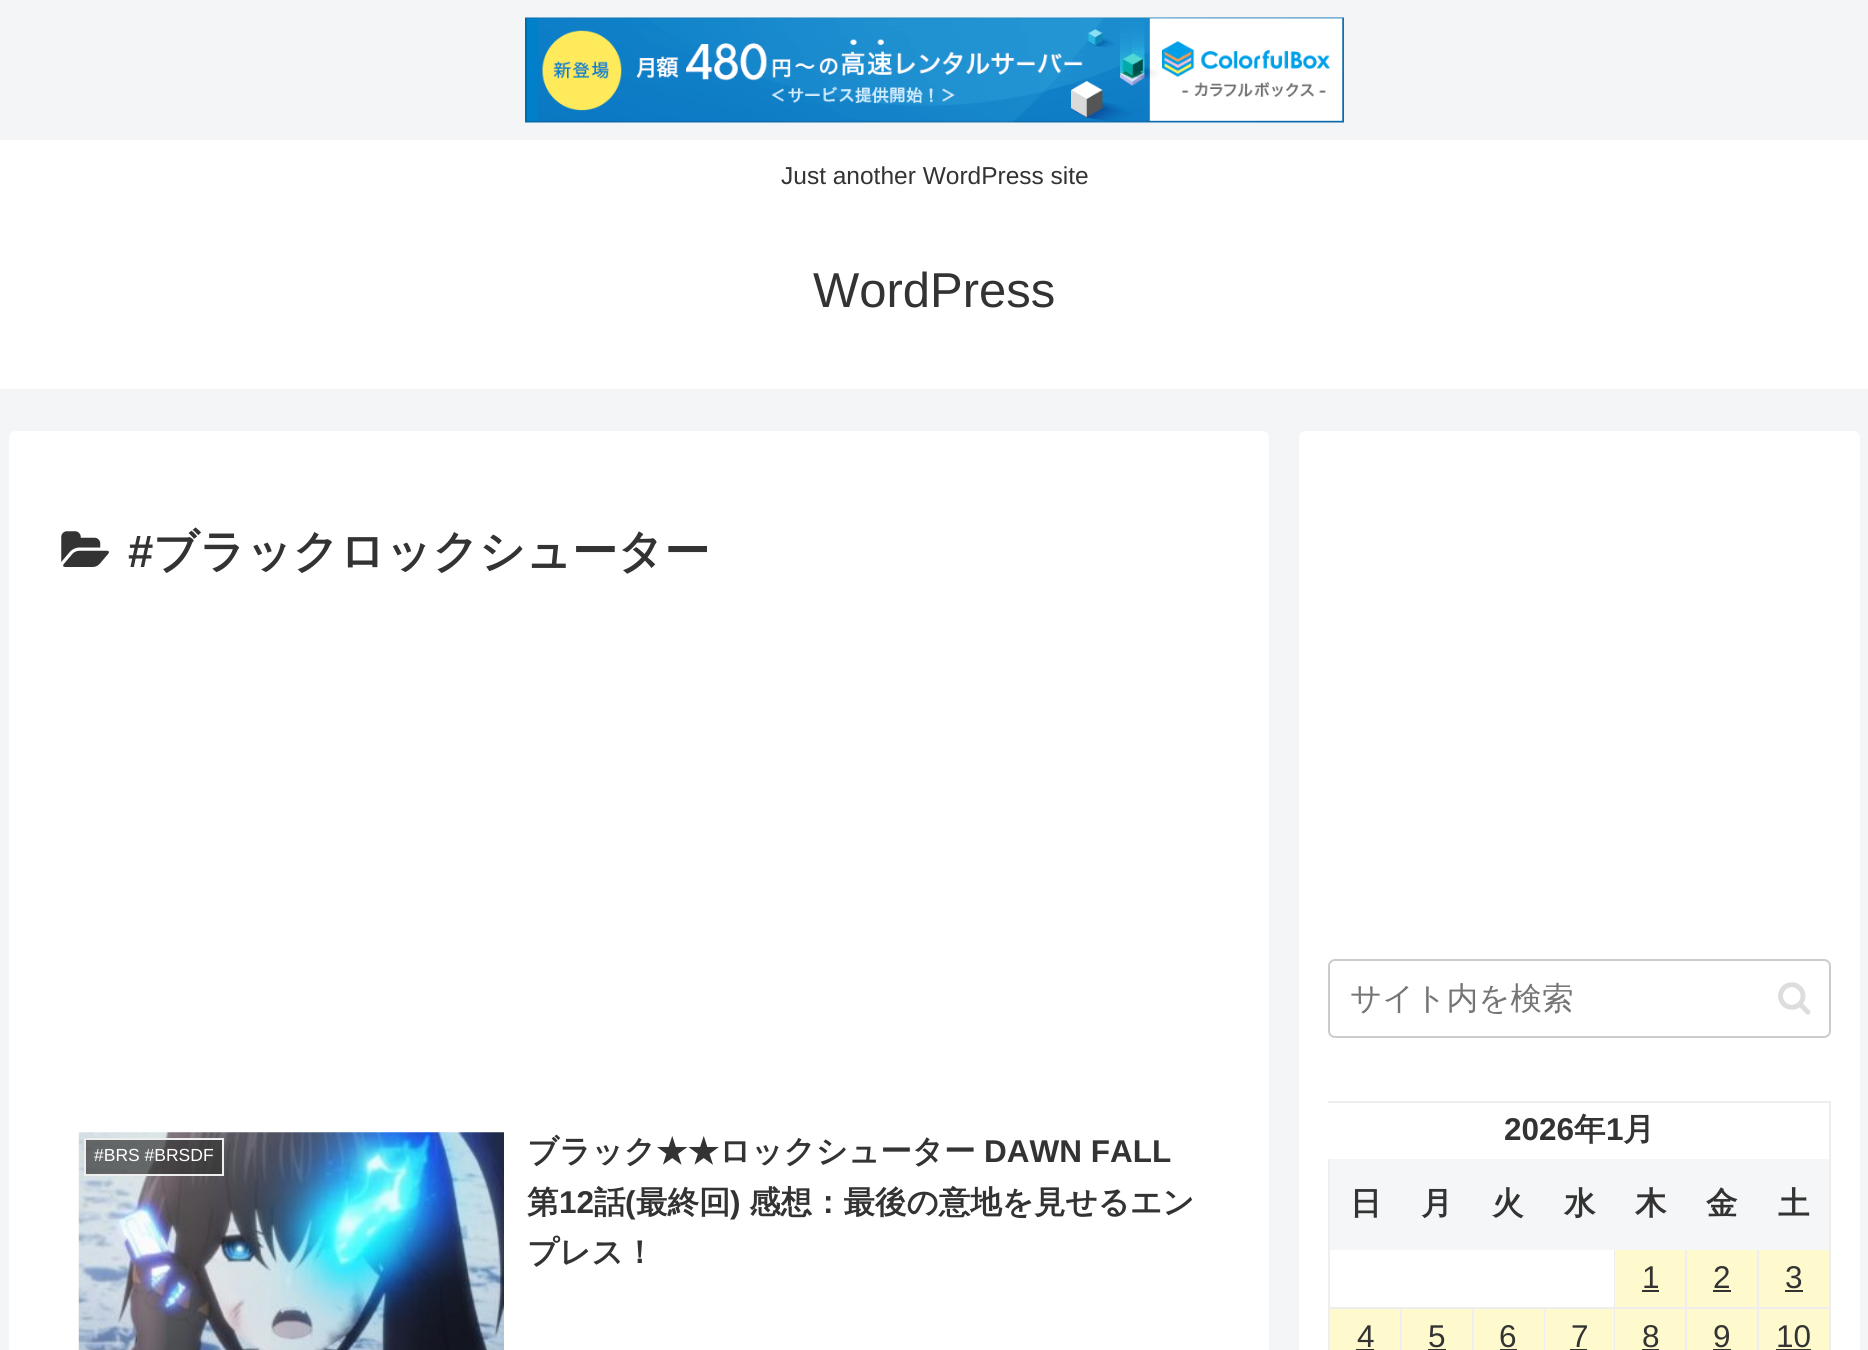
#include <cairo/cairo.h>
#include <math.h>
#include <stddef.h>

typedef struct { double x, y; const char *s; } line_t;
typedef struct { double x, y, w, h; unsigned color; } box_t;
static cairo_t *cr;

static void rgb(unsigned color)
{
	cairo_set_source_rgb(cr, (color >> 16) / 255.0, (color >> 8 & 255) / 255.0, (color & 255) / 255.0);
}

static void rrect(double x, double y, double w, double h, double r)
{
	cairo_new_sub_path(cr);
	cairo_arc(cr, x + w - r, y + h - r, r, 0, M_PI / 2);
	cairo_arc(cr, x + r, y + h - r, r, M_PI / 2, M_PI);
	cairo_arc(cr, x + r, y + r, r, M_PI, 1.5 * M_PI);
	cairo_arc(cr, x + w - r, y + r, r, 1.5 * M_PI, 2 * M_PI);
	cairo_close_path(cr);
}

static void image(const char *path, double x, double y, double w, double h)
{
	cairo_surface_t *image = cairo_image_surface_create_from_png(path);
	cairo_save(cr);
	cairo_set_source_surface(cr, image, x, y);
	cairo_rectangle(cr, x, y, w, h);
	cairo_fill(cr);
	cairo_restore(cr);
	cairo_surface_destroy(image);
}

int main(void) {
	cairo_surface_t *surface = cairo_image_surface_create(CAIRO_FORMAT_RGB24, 1868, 1350);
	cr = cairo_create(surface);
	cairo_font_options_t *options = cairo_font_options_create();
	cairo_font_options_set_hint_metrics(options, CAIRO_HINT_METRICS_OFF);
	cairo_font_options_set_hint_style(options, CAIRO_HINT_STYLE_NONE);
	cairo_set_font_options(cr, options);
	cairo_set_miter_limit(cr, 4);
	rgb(0xf4f5f7);
	cairo_paint(cr);
	image("img/1.png", 525, 17, 819, 106);
	rgb(0xffffff);
	cairo_rectangle(cr, 0, 140, 1868, 249);
	cairo_fill(cr);
	rrect(9, 431, 1260, 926, 7);
	cairo_fill(cr);
	image("img/2.png", 61, 531, 48, 36);
	image("img/3.png", 78, 1132, 426, 218);
	cairo_set_source_rgba(cr, 0.2, 0.2, 0.2, 0.7);
	cairo_rectangle(cr, 85, 1139, 138, 36);
	cairo_fill_preserve(cr);
	rgb(0xeeeeee);
	cairo_stroke(cr);
	rgb(0xffffff);
	rrect(1299, 431, 561, 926, 7);
	cairo_fill(cr);
	rrect(1329, 960, 501, 77, 6);
	rgb(0xcccccc);
	cairo_stroke(cr);
	image("img/4.png", 1778, 982, 33, 33);
	{
		static const box_t items[] = {
			{1328, 1101, 503, 2, 0xeeeeee},
			{1829, 1101, 2, 249, 0xeeeeee},
			{1757, 1307, 74, 2, 0xeeeeee},
			{1757, 1307, 2, 43, 0xeeeeee},
			{1685, 1307, 74, 2, 0xeeeeee},
			{1685, 1307, 2, 43, 0xeeeeee},
			{1614, 1307, 73, 2, 0xeeeeee},
			{1614, 1307, 1, 43, 0xeeeeee},
			{1544, 1307, 71, 2, 0xeeeeee},
			{1614, 1248, 2, 61, 0xeeeeee},
			{1685, 1248, 2, 61, 0xeeeeee},
			{1757, 1248, 2, 61, 0xeeeeee},
			{1330, 1159, 499, 91, 0xf5f6f7},
			{1615, 1250, 70, 57, 0xffface},
			{1642, 1290, 17, 2, 0x333333},
			{1687, 1250, 70, 57, 0xffface},
			{1713, 1290, 18, 2, 0x333333},
			{1759, 1250, 70, 57, 0xffface},
			{1785, 1290, 18, 2, 0x333333},
			{1544, 1307, 2, 43, 0xeeeeee},
			{1472, 1307, 73, 2, 0xeeeeee},
			{1472, 1307, 2, 43, 0xeeeeee},
			{1400, 1307, 74, 2, 0xeeeeee},
			{1400, 1307, 2, 43, 0xeeeeee},
			{1328, 1307, 74, 2, 0xeeeeee},
			{1328, 1159, 2, 191, 0xeeeeee},
			{1330, 1309, 70, 41, 0xffface},
			{1356, 1349, 18, 1, 0x333333},
			{1402, 1309, 70, 41, 0xffface},
			{1428, 1349, 18, 1, 0x333333},
			{1474, 1309, 70, 41, 0xffface},
			{1500, 1349, 17, 1, 0x333333},
			{1545, 1309, 69, 41, 0xffface},
			{1570, 1349, 17, 1, 0x333333},
			{1615, 1309, 70, 41, 0xffface},
			{1642, 1349, 17, 1, 0x333333},
			{1687, 1309, 70, 41, 0xffface},
			{1713, 1349, 18, 1, 0x333333},
			{1759, 1309, 70, 41, 0xffface},
			{1776, 1349, 35, 1, 0x333333},
		};
		for (size_t i = 0; i < sizeof items / sizeof *items; i++) {
			rgb(items[i].color);
			cairo_rectangle(cr, items[i].x, items[i].y, items[i].w, items[i].h);
			cairo_fill(cr);
		}
	}
	cairo_select_font_face(cr, "Liberation Sans", CAIRO_FONT_SLANT_NORMAL, CAIRO_FONT_WEIGHT_NORMAL);
	cairo_set_font_size(cr, 24.5);
	cairo_move_to(cr, 781, 184);
	cairo_show_text(cr, "Just another WordPress site");
	cairo_set_font_size(cr, 49);
	cairo_move_to(cr, 813, 307);
	cairo_show_text(cr, "WordPress");
	cairo_select_font_face(cr, "Liberation Sans", CAIRO_FONT_SLANT_NORMAL, CAIRO_FONT_WEIGHT_BOLD);
	cairo_set_font_size(cr, 45.5);
	cairo_move_to(cr, 128, 567);
	cairo_show_text(cr, "#");
	cairo_select_font_face(cr, "WenQuanYi Zen Hei", CAIRO_FONT_SLANT_NORMAL, CAIRO_FONT_WEIGHT_BOLD);
	cairo_move_to(cr, 153, 567);
	cairo_show_text(cr, "ブラックロックシューター");
	cairo_select_font_face(cr, "Liberation Sans", CAIRO_FONT_SLANT_NORMAL, CAIRO_FONT_WEIGHT_NORMAL);
	cairo_set_font_size(cr, 17.5);
	rgb(0xffffff);
	cairo_move_to(cr, 94, 1161);
	cairo_show_text(cr, "#BRS #BRSDF");
	cairo_select_font_face(cr, "WenQuanYi Zen Hei", CAIRO_FONT_SLANT_NORMAL, CAIRO_FONT_WEIGHT_BOLD);
	cairo_set_font_size(cr, 31.5);
	rgb(0x333333);
	cairo_move_to(cr, 527, 1162);
	cairo_show_text(cr, "ブラック★★ロックシューター");
	cairo_select_font_face(cr, "Liberation Sans", CAIRO_FONT_SLANT_NORMAL, CAIRO_FONT_WEIGHT_BOLD);
	cairo_move_to(cr, 984, 1162);
	cairo_show_text(cr, "DAWN FALL");
	cairo_select_font_face(cr, "WenQuanYi Zen Hei", CAIRO_FONT_SLANT_NORMAL, CAIRO_FONT_WEIGHT_BOLD);
	cairo_move_to(cr, 527, 1213);
	cairo_show_text(cr, "第");
	cairo_select_font_face(cr, "Liberation Sans", CAIRO_FONT_SLANT_NORMAL, CAIRO_FONT_WEIGHT_BOLD);
	cairo_move_to(cr, 559, 1213);
	cairo_show_text(cr, "12");
	cairo_select_font_face(cr, "WenQuanYi Zen Hei", CAIRO_FONT_SLANT_NORMAL, CAIRO_FONT_WEIGHT_BOLD);
	cairo_move_to(cr, 594, 1213);
	cairo_show_text(cr, "話");
	cairo_select_font_face(cr, "Liberation Sans", CAIRO_FONT_SLANT_NORMAL, CAIRO_FONT_WEIGHT_BOLD);
	cairo_move_to(cr, 625, 1213);
	cairo_show_text(cr, "(");
	cairo_select_font_face(cr, "WenQuanYi Zen Hei", CAIRO_FONT_SLANT_NORMAL, CAIRO_FONT_WEIGHT_BOLD);
	cairo_move_to(cr, 636, 1213);
	cairo_show_text(cr, "最終回");
	cairo_select_font_face(cr, "Liberation Sans", CAIRO_FONT_SLANT_NORMAL, CAIRO_FONT_WEIGHT_BOLD);
	cairo_move_to(cr, 730, 1213);
	cairo_show_text(cr, ")");
	cairo_select_font_face(cr, "WenQuanYi Zen Hei", CAIRO_FONT_SLANT_NORMAL, CAIRO_FONT_WEIGHT_BOLD);
	cairo_move_to(cr, 749, 1213);
	cairo_show_text(cr, "感想：最後の意地を見せるエン");
	cairo_move_to(cr, 527, 1263);
	cairo_show_text(cr, "プレス！");
	cairo_select_font_face(cr, "WenQuanYi Zen Hei Medium", CAIRO_FONT_SLANT_NORMAL, CAIRO_FONT_WEIGHT_NORMAL);
	rgb(0x757575);
	cairo_move_to(cr, 1350, 1009);
	cairo_show_text(cr, "サイト内を検索");
	cairo_select_font_face(cr, "Liberation Sans", CAIRO_FONT_SLANT_NORMAL, CAIRO_FONT_WEIGHT_BOLD);
	rgb(0x333333);
	cairo_move_to(cr, 1504, 1140);
	cairo_show_text(cr, "2026");
	cairo_select_font_face(cr, "WenQuanYi Zen Hei", CAIRO_FONT_SLANT_NORMAL, CAIRO_FONT_WEIGHT_BOLD);
	cairo_move_to(cr, 1574, 1140);
	cairo_show_text(cr, "年");
	cairo_select_font_face(cr, "Liberation Sans", CAIRO_FONT_SLANT_NORMAL, CAIRO_FONT_WEIGHT_BOLD);
	cairo_move_to(cr, 1606, 1140);
	cairo_show_text(cr, "1");
	cairo_select_font_face(cr, "WenQuanYi Zen Hei", CAIRO_FONT_SLANT_NORMAL, CAIRO_FONT_WEIGHT_BOLD);
	{
		static const line_t items[] = {
			{1623, 1140, "月"},
			{1350, 1214, "日"},
			{1421, 1214, "月"},
			{1492, 1214, "火"},
			{1564, 1214, "水"},
			{1635, 1214, "木"},
			{1706, 1214, "金"},
			{1778, 1214, "土"},
		};
		for (size_t i = 0; i < sizeof items / sizeof *items; i++) {
			cairo_move_to(cr, items[i].x, items[i].y);
			cairo_show_text(cr, items[i].s);
		}
	}
	cairo_select_font_face(cr, "Liberation Sans", CAIRO_FONT_SLANT_NORMAL, CAIRO_FONT_WEIGHT_NORMAL);
	{
		static const line_t items[] = {
			{1642, 1288, "1"},
			{1713, 1288, "2"},
			{1785, 1288, "3"},
			{1357, 1347, "4"},
			{1428, 1347, "5"},
			{1499, 1347, "6"},
			{1571, 1347, "7"},
			{1642, 1347, "8"},
			{1713, 1347, "9"},
			{1776, 1347, "10"},
		};
		for (size_t i = 0; i < sizeof items / sizeof *items; i++) {
			cairo_move_to(cr, items[i].x, items[i].y);
			cairo_show_text(cr, items[i].s);
		}
	}
	cairo_surface_write_to_png(surface, "page.png");
	cairo_font_options_destroy(options);
	cairo_destroy(cr);
	cairo_surface_destroy(surface);
	return 0;
}
